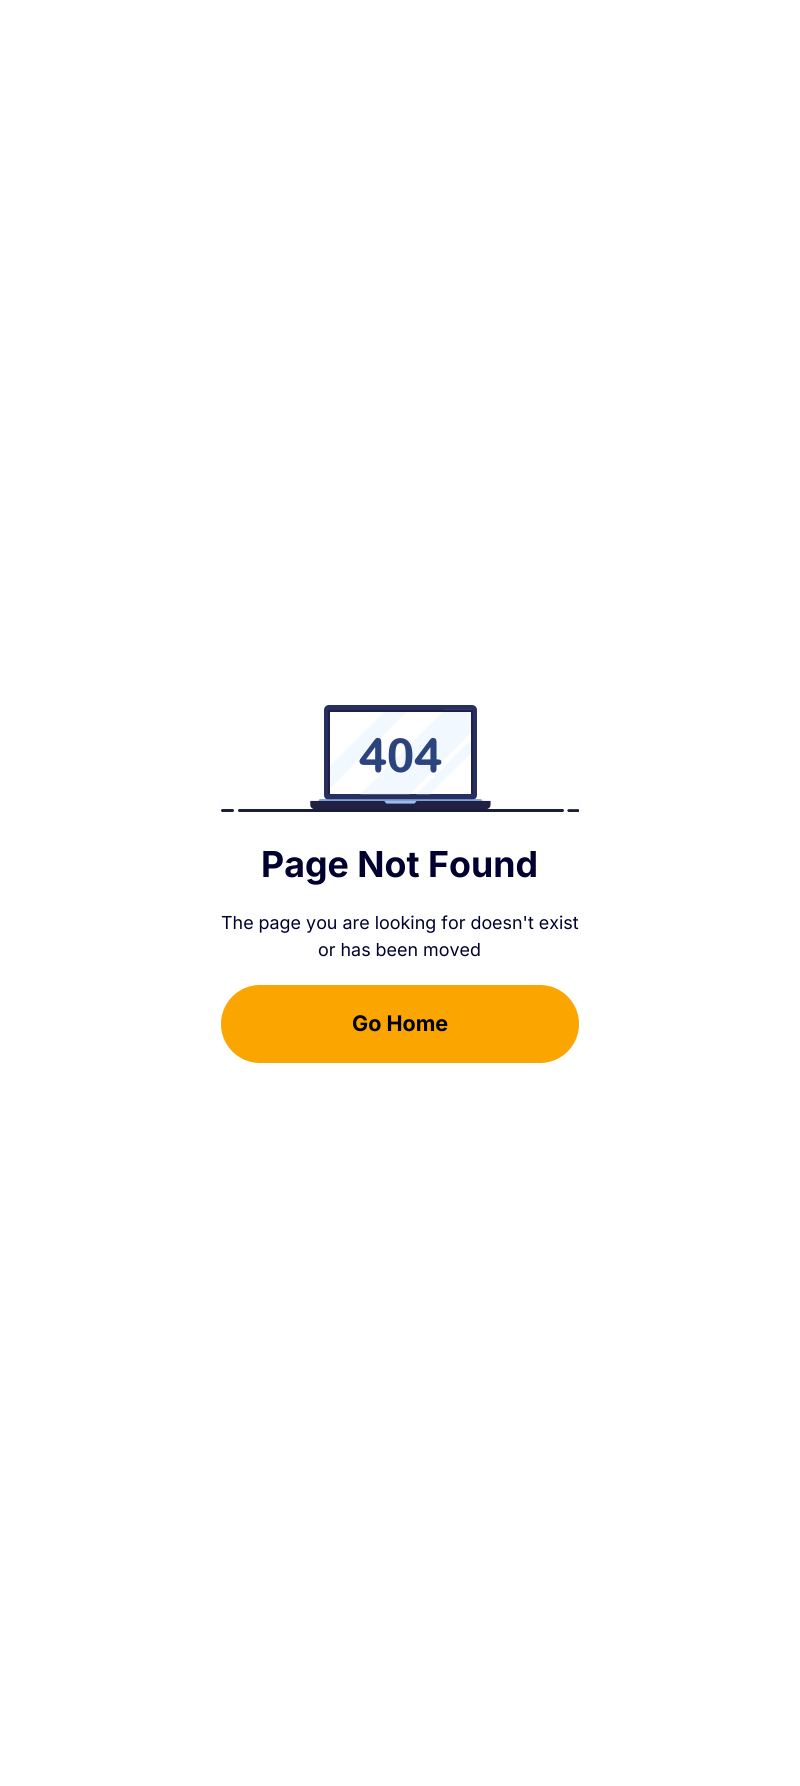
#include <cairo/cairo.h>
#include <math.h>
#include <stddef.h>

static cairo_t *cr;

static void rgb(unsigned color)
{
	cairo_set_source_rgb(cr, (color >> 16) / 255.0, (color >> 8 & 255) / 255.0, (color & 255) / 255.0);
}

static void rrect(double x, double y, double w, double h, double r)
{
	cairo_new_sub_path(cr);
	cairo_arc(cr, x + w - r, y + h - r, r, 0, M_PI / 2);
	cairo_arc(cr, x + r, y + h - r, r, M_PI / 2, M_PI);
	cairo_arc(cr, x + r, y + r, r, M_PI, 1.5 * M_PI);
	cairo_arc(cr, x + w - r, y + r, r, 1.5 * M_PI, 2 * M_PI);
	cairo_close_path(cr);
}

static void image(const char *path, double x, double y, double w, double h)
{
	cairo_surface_t *image = cairo_image_surface_create_from_png(path);
	cairo_save(cr);
	cairo_set_source_surface(cr, image, x, y);
	cairo_rectangle(cr, x, y, w, h);
	cairo_fill(cr);
	cairo_restore(cr);
	cairo_surface_destroy(image);
}

int main(void) {
	cairo_surface_t *surface = cairo_image_surface_create(CAIRO_FORMAT_RGB24, 800, 1786);
	cr = cairo_create(surface);
	cairo_font_options_t *options = cairo_font_options_create();
	cairo_font_options_set_hint_metrics(options, CAIRO_HINT_METRICS_OFF);
	cairo_font_options_set_hint_style(options, CAIRO_HINT_STYLE_NONE);
	cairo_set_font_options(cr, options);
	cairo_set_miter_limit(cr, 4);
	rgb(0xffffff);
	cairo_paint(cr);
	image("img/1.png", 221, 705, 358, 107);
	rgb(0xfba500);
	rrect(221, 985, 358, 78, 39);
	cairo_fill(cr);
	cairo_select_font_face(cr, "Inter", CAIRO_FONT_SLANT_NORMAL, CAIRO_FONT_WEIGHT_BOLD);
	cairo_set_font_size(cr, 35.75);
	rgb(0x010130);
	cairo_move_to(cr, 261, 877);
	cairo_show_text(cr, "Page Not Found");
	cairo_select_font_face(cr, "Inter", CAIRO_FONT_SLANT_NORMAL, CAIRO_FONT_WEIGHT_NORMAL);
	cairo_set_font_size(cr, 17.9);
	cairo_move_to(cr, 221, 929);
	cairo_show_text(cr, "The page you are looking for doesn't exist");
	cairo_move_to(cr, 318, 956);
	cairo_show_text(cr, "or has been moved");
	cairo_select_font_face(cr, "Inter", CAIRO_FONT_SLANT_NORMAL, CAIRO_FONT_WEIGHT_BOLD);
	cairo_set_font_size(cr, 21.5);
	rgb(0x000000);
	cairo_move_to(cr, 352, 1031);
	cairo_show_text(cr, "Go Home");
	cairo_surface_write_to_png(surface, "page.png");
	cairo_font_options_destroy(options);
	cairo_destroy(cr);
	cairo_surface_destroy(surface);
	return 0;
}
